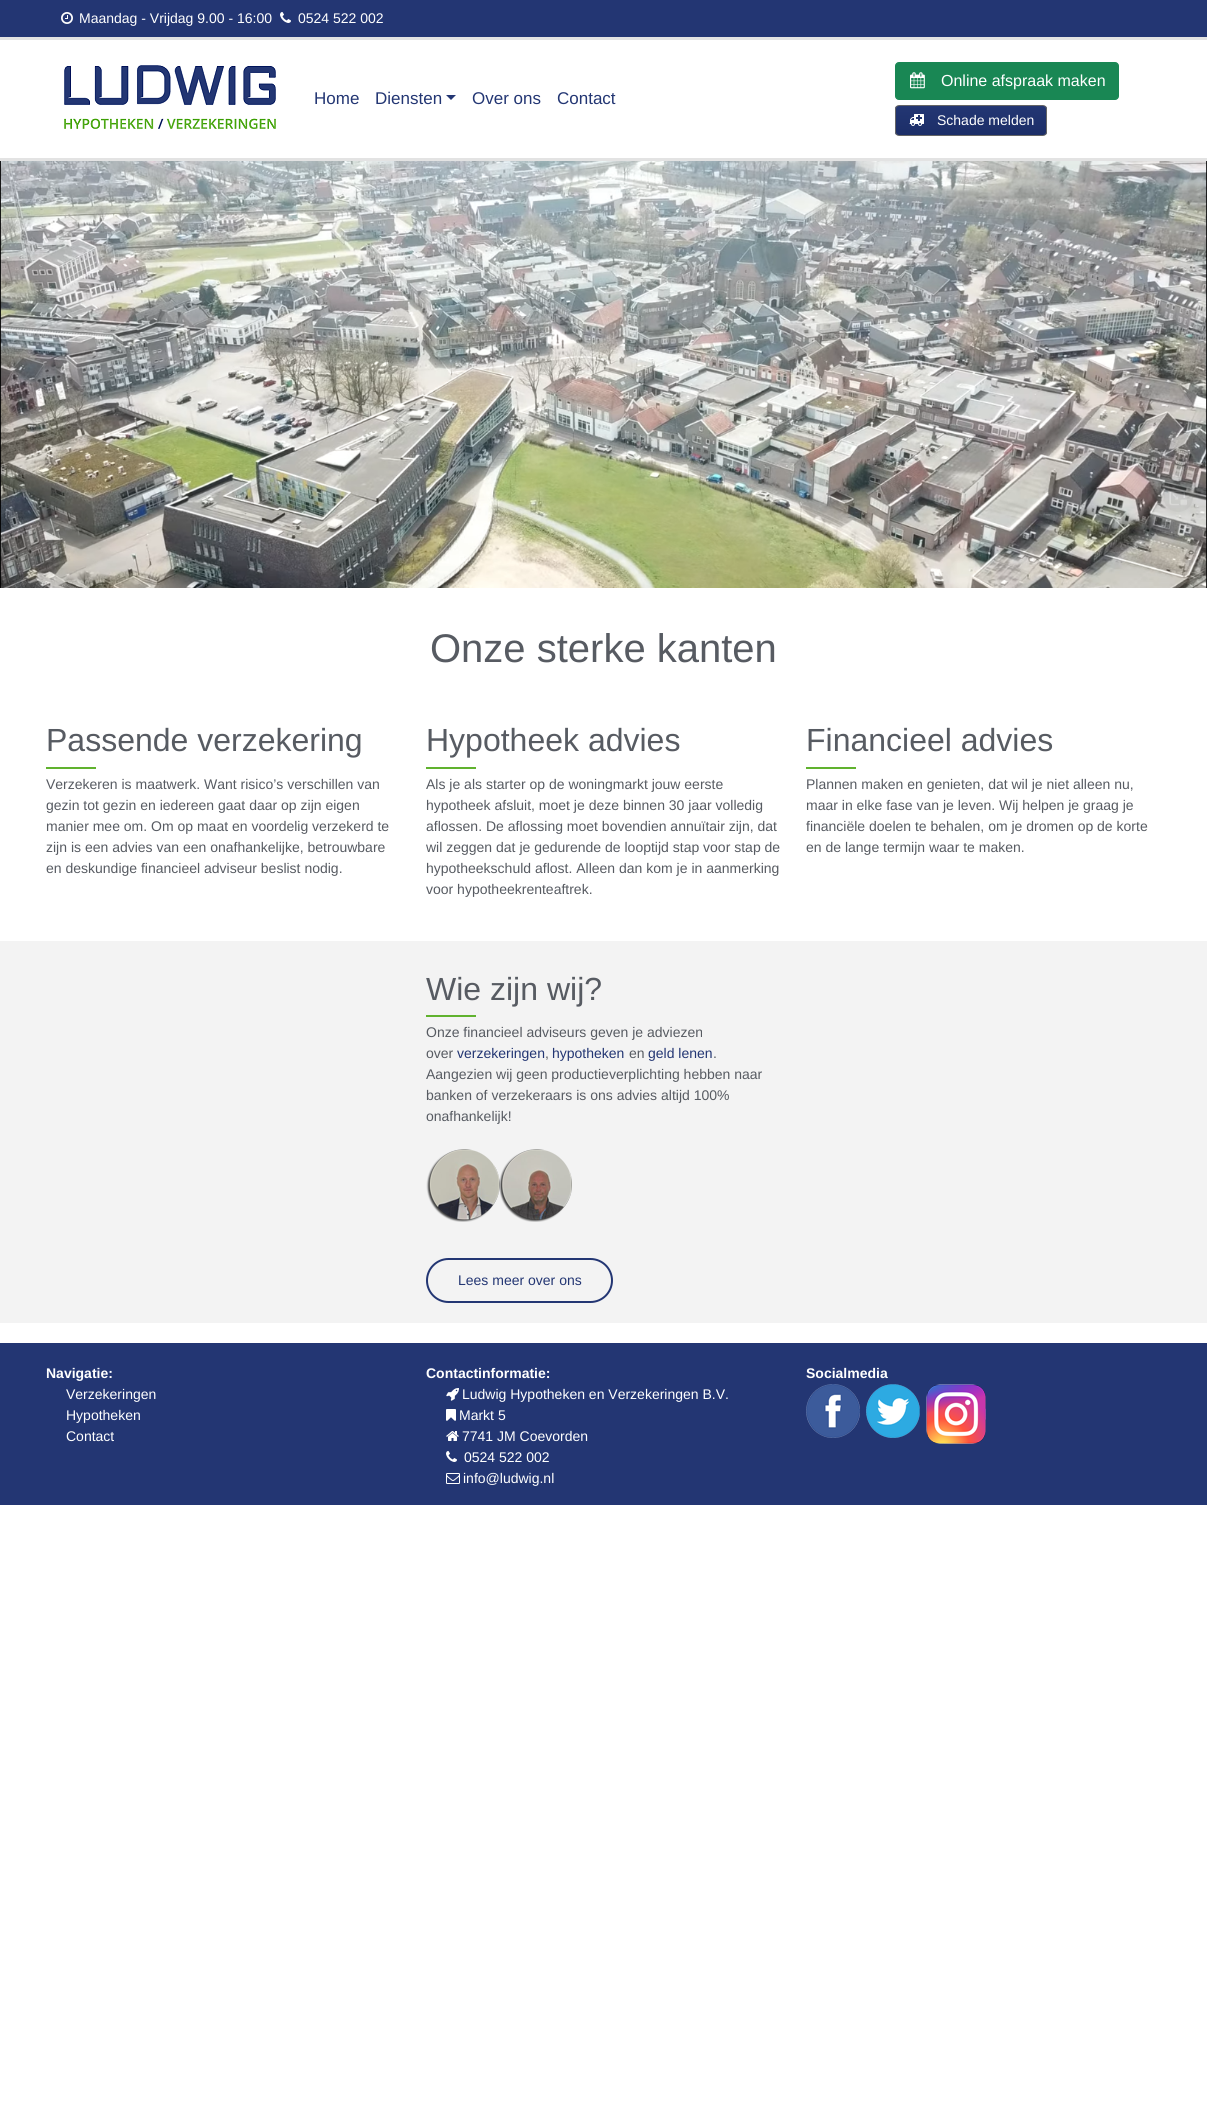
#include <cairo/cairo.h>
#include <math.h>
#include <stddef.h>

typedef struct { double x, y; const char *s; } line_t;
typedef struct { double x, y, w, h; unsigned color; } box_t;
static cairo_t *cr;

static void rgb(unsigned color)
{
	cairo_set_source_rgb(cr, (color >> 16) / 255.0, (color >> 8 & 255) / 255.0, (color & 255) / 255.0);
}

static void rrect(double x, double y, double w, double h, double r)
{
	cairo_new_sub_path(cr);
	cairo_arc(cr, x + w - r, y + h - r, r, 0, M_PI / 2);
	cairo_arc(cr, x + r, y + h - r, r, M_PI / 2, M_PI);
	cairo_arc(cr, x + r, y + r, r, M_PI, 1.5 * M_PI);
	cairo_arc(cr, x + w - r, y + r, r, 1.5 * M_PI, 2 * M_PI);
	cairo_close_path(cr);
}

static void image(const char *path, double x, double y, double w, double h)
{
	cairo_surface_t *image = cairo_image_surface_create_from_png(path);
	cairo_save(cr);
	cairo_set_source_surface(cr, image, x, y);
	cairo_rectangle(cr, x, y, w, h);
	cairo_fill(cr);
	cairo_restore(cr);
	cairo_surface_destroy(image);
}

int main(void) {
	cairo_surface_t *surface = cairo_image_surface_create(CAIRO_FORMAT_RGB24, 1207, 2114);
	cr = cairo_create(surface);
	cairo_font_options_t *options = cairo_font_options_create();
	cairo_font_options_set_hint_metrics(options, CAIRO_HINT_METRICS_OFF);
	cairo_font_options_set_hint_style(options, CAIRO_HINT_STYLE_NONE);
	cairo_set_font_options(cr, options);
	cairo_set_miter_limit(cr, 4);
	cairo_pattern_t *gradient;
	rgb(0xffffff);
	cairo_paint(cr);
	rgb(0x233673);
	cairo_rectangle(cr, 0, 0, 1207, 37);
	cairo_fill(cr);
	rgb(0xe3e3e3);
	cairo_rectangle(cr, 0, 37, 1207, 3);
	cairo_fill(cr);
	image("img/1.png", 61, 12, 12, 12);
	image("img/2.png", 280, 12, 11, 11);
	cairo_rectangle(cr, 0, 158, 1207, 3);
	cairo_fill(cr);
	image("img/3.png", 64, 65, 212, 64);
	rgb(0x233673);
	cairo_new_path(cr);
	cairo_move_to(cr, 446, 95);
	cairo_line_to(cr, 456, 95);
	cairo_line_to(cr, 451, 100);
	cairo_close_path(cr);
	cairo_fill(cr);
	rgb(0x198754);
	rrect(895.5, 62.5, 223, 37, 3.5);
	cairo_fill_preserve(cr);
	cairo_set_line_width(cr, 1);
	cairo_stroke(cr);
	image("img/4.png", 910, 72, 15, 17);
	cairo_save(cr);
	rrect(895, 105, 152, 31, 4);
	cairo_clip(cr);
	gradient = cairo_pattern_create_linear(971, 106, 971, 135);
	cairo_pattern_add_color_stop_rgba(gradient, 0, 0.137, 0.212, 0.451, 1);
	cairo_pattern_add_color_stop_rgba(gradient, 1, 0.11, 0.18, 0.408, 1);
	cairo_set_source(cr, gradient);
	cairo_pattern_destroy(gradient);
	cairo_rectangle(cr, 895, 106, 152, 29);
	cairo_fill(cr);
	cairo_restore(cr);
	rrect(895.5, 105.5, 151, 30, 3.5);
	rgb(0x656565);
	cairo_stroke(cr);
	image("img/5.png", 909, 114, 15, 12);
	image("img/6.png", 0, 161, 1207, 427);
	{
		static const box_t items[] = {
			{46, 767, 50, 2, 0x60b22e},
			{426, 767, 50, 2, 0x60b22e},
			{806, 767, 50, 2, 0x60b22e},
			{0, 941, 1207, 382, 0xf3f3f3},
			{426, 1015, 50, 2, 0x60b22e},
		};
		for (size_t i = 0; i < sizeof items / sizeof *items; i++) {
			rgb(items[i].color);
			cairo_rectangle(cr, items[i].x, items[i].y, items[i].w, items[i].h);
			cairo_fill(cr);
		}
	}
	image("img/7.png", 426, 1149, 146, 73);
	rrect(427, 1259, 185, 43, 21.5);
	rgb(0x233673);
	cairo_set_line_width(cr, 2);
	cairo_stroke(cr);
	cairo_rectangle(cr, 0, 1343, 1207, 162);
	cairo_fill(cr);
	image("img/8.png", 446, 1388, 13, 13);
	image("img/9.png", 446, 1409, 10, 12);
	image("img/10.png", 446, 1431, 13, 10);
	image("img/2.png", 446, 1451, 11, 11);
	image("img/11.png", 446, 1473, 14, 11);
	image("img/12.png", 806, 1384, 54, 54);
	image("img/13.png", 866, 1384, 54, 54);
	image("img/14.png", 926, 1384, 60, 60);
	cairo_select_font_face(cr, "Liberation Sans", CAIRO_FONT_SLANT_NORMAL, CAIRO_FONT_WEIGHT_NORMAL);
	cairo_set_font_size(cr, 14);
	rgb(0xffffff);
	cairo_move_to(cr, 79, 23);
	cairo_show_text(cr, "Maandag - Vrijdag 9.00 - 16:00");
	cairo_move_to(cr, 298, 23);
	cairo_show_text(cr, "0524 522 002");
	cairo_set_font_size(cr, 17);
	rgb(0x233673);
	{
		static const line_t items[] = {
			{314, 104, "Home"},
			{375, 104, "Diensten"},
			{472, 104, "Over ons"},
			{557, 104, "Contact"},
		};
		for (size_t i = 0; i < sizeof items / sizeof *items; i++) {
			cairo_move_to(cr, items[i].x, items[i].y);
			cairo_show_text(cr, items[i].s);
		}
	}
	cairo_set_font_size(cr, 16);
	rgb(0xffffff);
	cairo_move_to(cr, 941, 86);
	cairo_show_text(cr, "Online afspraak maken");
	cairo_set_font_size(cr, 14);
	cairo_move_to(cr, 937, 125);
	cairo_show_text(cr, "Schade melden");
	cairo_set_font_size(cr, 40);
	rgb(0x575b62);
	cairo_move_to(cr, 430, 662);
	cairo_show_text(cr, "Onze sterke kanten");
	cairo_set_font_size(cr, 32);
	cairo_move_to(cr, 46, 751);
	cairo_show_text(cr, "Passende verzekering");
	cairo_set_font_size(cr, 14);
	{
		static const line_t items[] = {
			{46, 789, "Verzekeren is maatwerk. Want risico’s verschillen van"},
			{46, 810, "gezin tot gezin en iedereen gaat daar op zijn eigen"},
			{46, 831, "manier mee om. Om op maat en voordelig verzekerd te"},
			{46, 852, "zijn is een advies van een onafhankelijke, betrouwbare"},
			{46, 873, "en deskundige financieel adviseur beslist nodig."},
		};
		for (size_t i = 0; i < sizeof items / sizeof *items; i++) {
			cairo_move_to(cr, items[i].x, items[i].y);
			cairo_show_text(cr, items[i].s);
		}
	}
	cairo_set_font_size(cr, 32);
	cairo_move_to(cr, 426, 751);
	cairo_show_text(cr, "Hypotheek advies");
	cairo_set_font_size(cr, 14);
	{
		static const line_t items[] = {
			{426, 789, "Als je als starter op de woningmarkt jouw eerste"},
			{426, 810, "hypotheek afsluit, moet je deze binnen 30 jaar volledig"},
			{426, 831, "aflossen. De aflossing moet bovendien annuïtair zijn, dat"},
			{426, 852, "wil zeggen dat je gedurende de looptijd stap voor stap de"},
			{426, 873, "hypotheekschuld aflost. Alleen dan kom je in aanmerking"},
			{426, 894, "voor hypotheekrenteaftrek."},
		};
		for (size_t i = 0; i < sizeof items / sizeof *items; i++) {
			cairo_move_to(cr, items[i].x, items[i].y);
			cairo_show_text(cr, items[i].s);
		}
	}
	cairo_set_font_size(cr, 32);
	cairo_move_to(cr, 806, 751);
	cairo_show_text(cr, "Financieel advies");
	cairo_set_font_size(cr, 14);
	{
		static const line_t items[] = {
			{806, 789, "Plannen maken en genieten, dat wil je niet alleen nu,"},
			{806, 810, "maar in elke fase van je leven. Wij helpen je graag je"},
			{806, 831, "financiële doelen te behalen, om je dromen op de korte"},
			{806, 852, "en de lange termijn waar te maken."},
		};
		for (size_t i = 0; i < sizeof items / sizeof *items; i++) {
			cairo_move_to(cr, items[i].x, items[i].y);
			cairo_show_text(cr, items[i].s);
		}
	}
	cairo_set_font_size(cr, 32);
	cairo_move_to(cr, 426, 1000);
	cairo_show_text(cr, "Wie zijn wij?");
	cairo_set_font_size(cr, 14);
	cairo_move_to(cr, 426, 1037);
	cairo_show_text(cr, "Onze financieel adviseurs geven je adviezen");
	cairo_move_to(cr, 426, 1058);
	cairo_show_text(cr, "over");
	rgb(0x233673);
	cairo_move_to(cr, 457, 1058);
	cairo_show_text(cr, "verzekeringen");
	rgb(0x575b62);
	cairo_move_to(cr, 545, 1058);
	cairo_show_text(cr, ",");
	rgb(0x233673);
	cairo_move_to(cr, 552, 1058);
	cairo_show_text(cr, "hypotheken");
	rgb(0x575b62);
	cairo_move_to(cr, 629, 1058);
	cairo_show_text(cr, "en");
	rgb(0x233673);
	cairo_move_to(cr, 648, 1058);
	cairo_show_text(cr, "geld lenen");
	rgb(0x575b62);
	{
		static const line_t items[] = {
			{713, 1058, "."},
			{426, 1079, "Aangezien wij geen productieverplichting hebben naar"},
			{426, 1100, "banken of verzekeraars is ons advies altijd 100%"},
			{426, 1121, "onafhankelijk!"},
		};
		for (size_t i = 0; i < sizeof items / sizeof *items; i++) {
			cairo_move_to(cr, items[i].x, items[i].y);
			cairo_show_text(cr, items[i].s);
		}
	}
	rgb(0x233673);
	cairo_move_to(cr, 458, 1285);
	cairo_show_text(cr, "Lees meer over ons");
	cairo_select_font_face(cr, "Liberation Sans", CAIRO_FONT_SLANT_NORMAL, CAIRO_FONT_WEIGHT_BOLD);
	rgb(0xffffff);
	cairo_move_to(cr, 46, 1378);
	cairo_show_text(cr, "Navigatie:");
	cairo_select_font_face(cr, "Liberation Sans", CAIRO_FONT_SLANT_NORMAL, CAIRO_FONT_WEIGHT_NORMAL);
	{
		static const line_t items[] = {
			{66, 1399, "Verzekeringen"},
			{66, 1420, "Hypotheken"},
			{66, 1441, "Contact"},
		};
		for (size_t i = 0; i < sizeof items / sizeof *items; i++) {
			cairo_move_to(cr, items[i].x, items[i].y);
			cairo_show_text(cr, items[i].s);
		}
	}
	cairo_select_font_face(cr, "Liberation Sans", CAIRO_FONT_SLANT_NORMAL, CAIRO_FONT_WEIGHT_BOLD);
	cairo_move_to(cr, 426, 1378);
	cairo_show_text(cr, "Contactinformatie:");
	cairo_select_font_face(cr, "Liberation Sans", CAIRO_FONT_SLANT_NORMAL, CAIRO_FONT_WEIGHT_NORMAL);
	{
		static const line_t items[] = {
			{462, 1399, "Ludwig Hypotheken en Verzekeringen B.V."},
			{459, 1420, "Markt 5"},
			{462, 1441, "7741 JM Coevorden"},
			{464, 1462, "0524 522 002"},
			{463, 1483, "info@ludwig.nl"},
		};
		for (size_t i = 0; i < sizeof items / sizeof *items; i++) {
			cairo_move_to(cr, items[i].x, items[i].y);
			cairo_show_text(cr, items[i].s);
		}
	}
	cairo_select_font_face(cr, "Liberation Sans", CAIRO_FONT_SLANT_NORMAL, CAIRO_FONT_WEIGHT_BOLD);
	cairo_move_to(cr, 806, 1378);
	cairo_show_text(cr, "Socialmedia");
	cairo_surface_write_to_png(surface, "page.png");
	cairo_font_options_destroy(options);
	cairo_destroy(cr);
	cairo_surface_destroy(surface);
	return 0;
}
